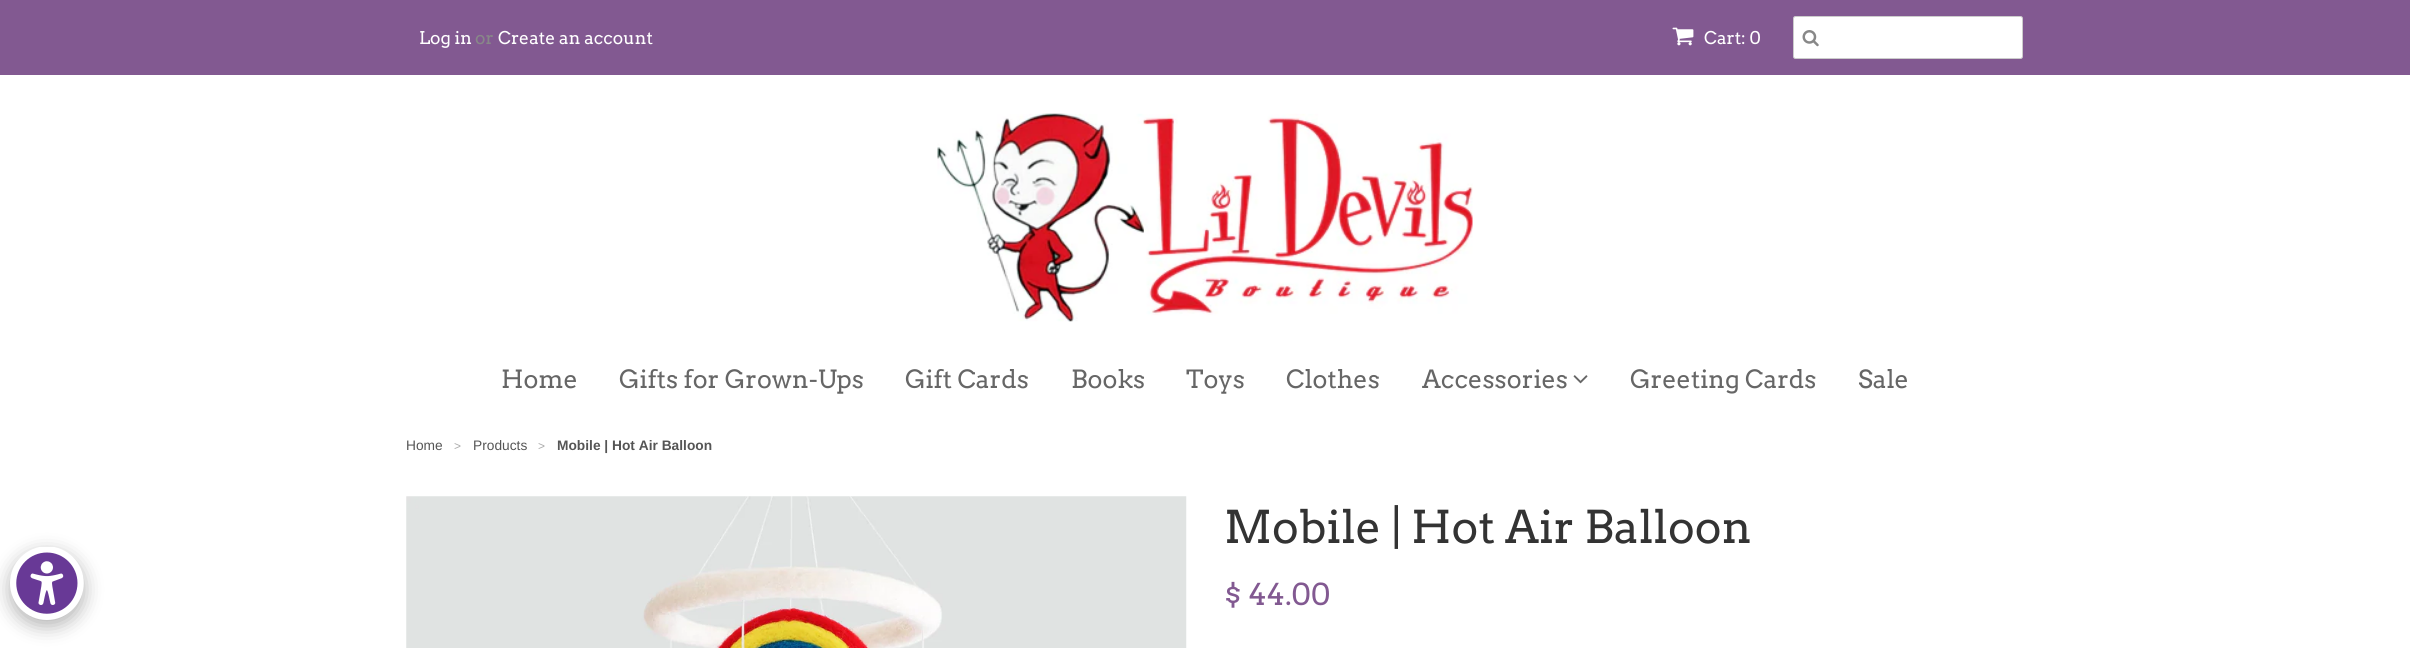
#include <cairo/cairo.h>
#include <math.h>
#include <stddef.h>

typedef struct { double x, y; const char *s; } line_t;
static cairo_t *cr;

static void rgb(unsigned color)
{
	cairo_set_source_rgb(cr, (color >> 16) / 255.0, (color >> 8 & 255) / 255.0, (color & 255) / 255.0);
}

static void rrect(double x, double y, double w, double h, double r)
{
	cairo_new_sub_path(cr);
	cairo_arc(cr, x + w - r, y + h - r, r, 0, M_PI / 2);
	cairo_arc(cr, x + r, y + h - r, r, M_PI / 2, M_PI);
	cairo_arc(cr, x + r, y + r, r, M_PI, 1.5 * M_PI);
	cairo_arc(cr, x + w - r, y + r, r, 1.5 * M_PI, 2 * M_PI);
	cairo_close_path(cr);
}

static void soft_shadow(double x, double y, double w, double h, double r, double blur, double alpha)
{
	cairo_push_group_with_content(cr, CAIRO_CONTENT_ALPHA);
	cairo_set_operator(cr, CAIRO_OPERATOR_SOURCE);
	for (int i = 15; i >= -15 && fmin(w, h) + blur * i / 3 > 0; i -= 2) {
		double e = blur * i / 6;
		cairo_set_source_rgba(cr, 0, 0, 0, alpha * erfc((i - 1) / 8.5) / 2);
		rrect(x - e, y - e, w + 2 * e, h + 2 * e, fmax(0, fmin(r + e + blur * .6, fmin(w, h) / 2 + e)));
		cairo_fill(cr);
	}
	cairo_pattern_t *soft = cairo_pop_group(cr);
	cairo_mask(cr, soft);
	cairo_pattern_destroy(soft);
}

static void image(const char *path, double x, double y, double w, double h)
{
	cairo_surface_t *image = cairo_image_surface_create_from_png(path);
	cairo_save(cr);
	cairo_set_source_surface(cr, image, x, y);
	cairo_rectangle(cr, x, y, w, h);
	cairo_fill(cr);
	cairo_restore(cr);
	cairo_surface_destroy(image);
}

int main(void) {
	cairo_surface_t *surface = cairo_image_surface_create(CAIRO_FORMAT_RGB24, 2410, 648);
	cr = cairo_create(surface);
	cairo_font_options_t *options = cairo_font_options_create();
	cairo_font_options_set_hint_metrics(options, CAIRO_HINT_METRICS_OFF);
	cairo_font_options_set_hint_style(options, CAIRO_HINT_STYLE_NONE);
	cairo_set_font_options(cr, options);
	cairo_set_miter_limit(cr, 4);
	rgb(0xffffff);
	cairo_paint(cr);
	rgb(0x000000);
	soft_shadow(10, 553, 74, 73, 36.5, 9.5, 0.3);
	image("img/1.png", 10, 547, 74, 73);
	rgb(0x825991);
	cairo_rectangle(cr, 0, 0, 2410, 75);
	cairo_fill(cr);
	image("img/2.png", 1672, 27, 22, 19);
	rgb(0xffffff);
	rrect(1793.5, 16.5, 229, 42, 2);
	cairo_fill_preserve(cr);
	rgb(0xcccccc);
	cairo_set_line_width(cr, 1);
	cairo_stroke(cr);
	image("img/3.png", 1802, 30, 17, 17);
	image("img/4.png", 937, 113, 536, 209);
	image("img/5.png", 1573, 375, 15, 9);
	image("img/6.png", 406, 496, 781, 152);
	cairo_select_font_face(cr, "Arvo", CAIRO_FONT_SLANT_NORMAL, CAIRO_FONT_WEIGHT_NORMAL);
	cairo_set_font_size(cr, 17.5);
	rgb(0xffffff);
	cairo_move_to(cr, 419, 44);
	cairo_show_text(cr, "Log in");
	rgb(0x888888);
	cairo_move_to(cr, 475, 44);
	cairo_show_text(cr, "or");
	rgb(0xffffff);
	cairo_move_to(cr, 498, 44);
	cairo_show_text(cr, "Create an account");
	cairo_move_to(cr, 1704, 44);
	cairo_show_text(cr, "Cart: 0");
	cairo_set_font_size(cr, 25);
	rgb(0x666666);
	{
		static const line_t items[] = {
			{501, 388, "Home"},
			{619, 388, "Gifts for Grown-Ups"},
			{905, 388, "Gift Cards"},
			{1071, 388, "Books"},
			{1186, 388, "Toys"},
			{1286, 388, "Clothes"},
			{1422, 388, "Accessories"},
			{1630, 388, "Greeting Cards"},
			{1858, 388, "Sale"},
		};
		for (size_t i = 0; i < sizeof items / sizeof *items; i++) {
			cairo_move_to(cr, items[i].x, items[i].y);
			cairo_show_text(cr, items[i].s);
		}
	}
	cairo_select_font_face(cr, "Liberation Sans", CAIRO_FONT_SLANT_NORMAL, CAIRO_FONT_WEIGHT_NORMAL);
	cairo_set_font_size(cr, 13.75);
	rgb(0x555555);
	cairo_move_to(cr, 406, 450);
	cairo_show_text(cr, "Home");
	cairo_set_font_size(cr, 12);
	rgb(0xaaaaaa);
	cairo_move_to(cr, 454, 450);
	cairo_show_text(cr, ">");
	cairo_set_font_size(cr, 13.75);
	rgb(0x555555);
	cairo_move_to(cr, 473, 450);
	cairo_show_text(cr, "Products");
	cairo_set_font_size(cr, 12);
	rgb(0xaaaaaa);
	cairo_move_to(cr, 538, 450);
	cairo_show_text(cr, ">");
	cairo_select_font_face(cr, "Liberation Sans", CAIRO_FONT_SLANT_NORMAL, CAIRO_FONT_WEIGHT_BOLD);
	cairo_set_font_size(cr, 13.75);
	rgb(0x555555);
	cairo_move_to(cr, 557, 450);
	cairo_show_text(cr, "Mobile | Hot Air Balloon");
	cairo_select_font_face(cr, "Arvo", CAIRO_FONT_SLANT_NORMAL, CAIRO_FONT_WEIGHT_NORMAL);
	cairo_set_font_size(cr, 45);
	rgb(0x333333);
	cairo_move_to(cr, 1224, 543);
	cairo_show_text(cr, "Mobile | Hot Air Balloon");
	cairo_set_font_size(cr, 30);
	rgb(0x825991);
	cairo_move_to(cr, 1224, 605);
	cairo_show_text(cr, "$ 44.00");
	cairo_surface_write_to_png(surface, "page.png");
	cairo_font_options_destroy(options);
	cairo_destroy(cr);
	cairo_surface_destroy(surface);
	return 0;
}
